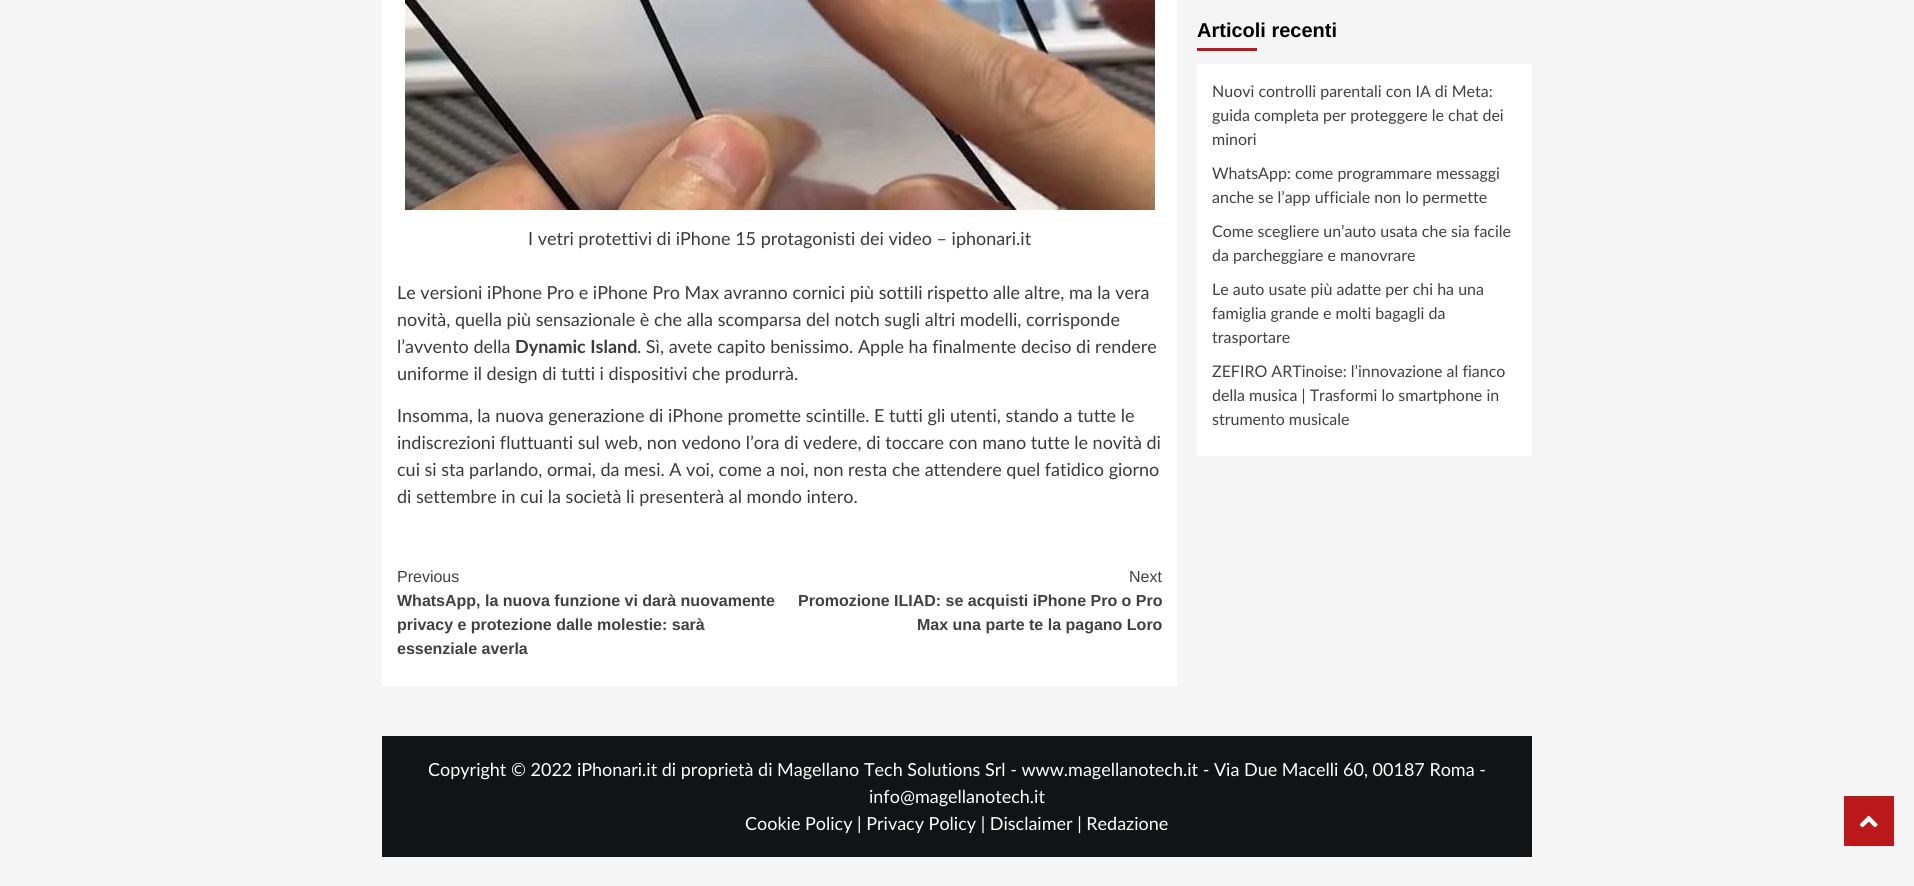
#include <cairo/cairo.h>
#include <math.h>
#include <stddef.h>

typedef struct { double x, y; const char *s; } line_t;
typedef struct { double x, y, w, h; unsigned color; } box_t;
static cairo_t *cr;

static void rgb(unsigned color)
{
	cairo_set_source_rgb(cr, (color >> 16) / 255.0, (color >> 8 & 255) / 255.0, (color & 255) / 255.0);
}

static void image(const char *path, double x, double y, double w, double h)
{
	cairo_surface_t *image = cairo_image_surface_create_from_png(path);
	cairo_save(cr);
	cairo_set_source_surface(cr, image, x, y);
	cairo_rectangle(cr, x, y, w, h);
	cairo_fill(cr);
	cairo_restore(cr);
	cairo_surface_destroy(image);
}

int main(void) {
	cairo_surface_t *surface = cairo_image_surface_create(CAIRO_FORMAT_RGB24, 1914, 886);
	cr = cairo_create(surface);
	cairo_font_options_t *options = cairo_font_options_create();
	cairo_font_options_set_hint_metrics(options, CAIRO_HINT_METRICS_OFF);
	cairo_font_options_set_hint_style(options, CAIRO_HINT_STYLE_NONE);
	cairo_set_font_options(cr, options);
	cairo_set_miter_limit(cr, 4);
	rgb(0xf5f5f5);
	cairo_paint(cr);
	rgb(0xffffff);
	cairo_rectangle(cr, 382, 0, 795, 686);
	cairo_fill(cr);
	image("img/1.png", 405, 0, 750, 210);
	{
		static const box_t items[] = {
			{1197, 48, 60, 3, 0xbb1919},
			{1197, 64, 335, 392, 0xffffff},
			{382, 736, 1150, 121, 0x121314},
			{1844, 796, 50, 50, 0xbb1919},
		};
		for (size_t i = 0; i < sizeof items / sizeof *items; i++) {
			rgb(items[i].color);
			cairo_rectangle(cr, items[i].x, items[i].y, items[i].w, items[i].h);
			cairo_fill(cr);
		}
	}
	image("img/2.png", 1860, 815, 18, 13);
	cairo_select_font_face(cr, "Lato", CAIRO_FONT_SLANT_NORMAL, CAIRO_FONT_WEIGHT_NORMAL);
	cairo_set_font_size(cr, 18);
	rgb(0x3a3a3a);
	{
		static const line_t items[] = {
			{528, 245, "I vetri protettivi di iPhone 15 protagonisti dei video – iphonari.it"},
			{397, 299, "Le versioni iPhone Pro e iPhone Pro Max avranno cornici più sottili rispetto alle altre, ma la vera"},
			{397, 326, "novità, quella più sensazionale è che alla scomparsa del notch sugli altri modelli, corrisponde"},
			{397, 353, "l’avvento della"},
		};
		for (size_t i = 0; i < sizeof items / sizeof *items; i++) {
			cairo_move_to(cr, items[i].x, items[i].y);
			cairo_show_text(cr, items[i].s);
		}
	}
	cairo_select_font_face(cr, "Lato", CAIRO_FONT_SLANT_NORMAL, CAIRO_FONT_WEIGHT_BOLD);
	cairo_move_to(cr, 515, 353);
	cairo_show_text(cr, "Dynamic Island");
	cairo_select_font_face(cr, "Lato", CAIRO_FONT_SLANT_NORMAL, CAIRO_FONT_WEIGHT_NORMAL);
	{
		static const line_t items[] = {
			{637, 353, ". Sì, avete capito benissimo. Apple ha finalmente deciso di rendere"},
			{397, 380, "uniforme il design di tutti i dispositivi che produrrà."},
			{397, 422, "Insomma, la nuova generazione di iPhone promette scintille. E tutti gli utenti, stando a tutte le"},
			{397, 449, "indiscrezioni fluttuanti sul web, non vedono l’ora di vedere, di toccare con mano tutte le novità di"},
			{397, 476, "cui si sta parlando, ormai, da mesi. A voi, come a noi, non resta che attendere quel fatidico giorno"},
			{397, 503, "di settembre in cui la società li presenterà al mondo intero."},
		};
		for (size_t i = 0; i < sizeof items / sizeof *items; i++) {
			cairo_move_to(cr, items[i].x, items[i].y);
			cairo_show_text(cr, items[i].s);
		}
	}
	cairo_select_font_face(cr, "Liberation Sans", CAIRO_FONT_SLANT_NORMAL, CAIRO_FONT_WEIGHT_NORMAL);
	cairo_set_font_size(cr, 16);
	rgb(0x404040);
	cairo_move_to(cr, 397, 582);
	cairo_show_text(cr, "Previous");
	cairo_select_font_face(cr, "Liberation Sans", CAIRO_FONT_SLANT_NORMAL, CAIRO_FONT_WEIGHT_BOLD);
	{
		static const line_t items[] = {
			{397, 606, "WhatsApp, la nuova funzione vi darà nuovamente"},
			{397, 630, "privacy e protezione dalle molestie: sarà"},
			{397, 654, "essenziale averla"},
		};
		for (size_t i = 0; i < sizeof items / sizeof *items; i++) {
			cairo_move_to(cr, items[i].x, items[i].y);
			cairo_show_text(cr, items[i].s);
		}
	}
	cairo_select_font_face(cr, "Liberation Sans", CAIRO_FONT_SLANT_NORMAL, CAIRO_FONT_WEIGHT_NORMAL);
	cairo_move_to(cr, 1129, 582);
	cairo_show_text(cr, "Next");
	cairo_select_font_face(cr, "Liberation Sans", CAIRO_FONT_SLANT_NORMAL, CAIRO_FONT_WEIGHT_BOLD);
	cairo_move_to(cr, 798, 606);
	cairo_show_text(cr, "Promozione ILIAD: se acquisti iPhone Pro o Pro");
	cairo_move_to(cr, 917, 630);
	cairo_show_text(cr, "Max una parte te la pagano Loro");
	cairo_set_font_size(cr, 20);
	rgb(0x000000);
	cairo_move_to(cr, 1197, 37);
	cairo_show_text(cr, "Articoli recenti");
	cairo_select_font_face(cr, "Lato", CAIRO_FONT_SLANT_NORMAL, CAIRO_FONT_WEIGHT_NORMAL);
	cairo_set_font_size(cr, 16);
	rgb(0x404040);
	{
		static const line_t items[] = {
			{1212, 97, "Nuovi controlli parentali con IA di Meta:"},
			{1212, 121, "guida completa per proteggere le chat dei"},
			{1212, 145, "minori"},
			{1212, 179, "WhatsApp: come programmare messaggi"},
			{1212, 203, "anche se l’app ufficiale non lo permette"},
			{1212, 237, "Come scegliere un’auto usata che sia facile"},
			{1212, 261, "da parcheggiare e manovrare"},
			{1212, 295, "Le auto usate più adatte per chi ha una"},
			{1212, 319, "famiglia grande e molti bagagli da"},
			{1212, 343, "trasportare"},
			{1212, 377, "ZEFIRO ARTinoise: l’innovazione al fianco"},
			{1212, 401, "della musica | Trasformi lo smartphone in"},
			{1212, 425, "strumento musicale"},
		};
		for (size_t i = 0; i < sizeof items / sizeof *items; i++) {
			cairo_move_to(cr, items[i].x, items[i].y);
			cairo_show_text(cr, items[i].s);
		}
	}
	cairo_set_font_size(cr, 18);
	rgb(0xffffff);
	{
		static const line_t items[] = {
			{428, 776, "Copyright © 2022 iPhonari.it di proprietà di Magellano Tech Solutions Srl - www.magellanotech.it - Via Due Macelli 60, 00187 Roma -"},
			{869, 803, "info@magellanotech.it"},
			{745, 830, "Cookie Policy | Privacy Policy | Disclaimer | Redazione"},
		};
		for (size_t i = 0; i < sizeof items / sizeof *items; i++) {
			cairo_move_to(cr, items[i].x, items[i].y);
			cairo_show_text(cr, items[i].s);
		}
	}
	cairo_surface_write_to_png(surface, "page.png");
	cairo_font_options_destroy(options);
	cairo_destroy(cr);
	cairo_surface_destroy(surface);
	return 0;
}
